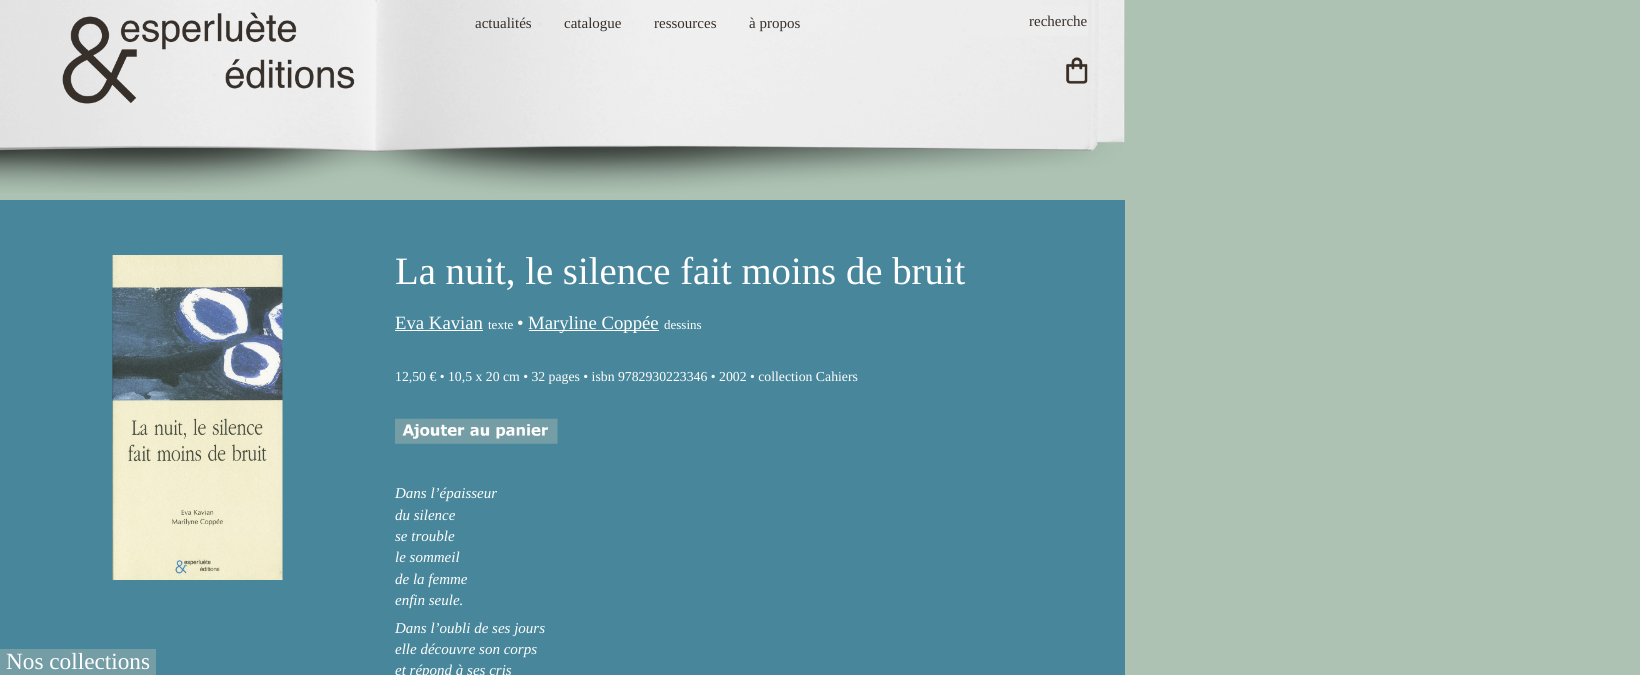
#include <cairo/cairo.h>
#include <math.h>
#include <stddef.h>

typedef struct { double x, y; const char *s; } line_t;
typedef struct { double x, y, w, h; unsigned color; } box_t;
static cairo_t *cr;

static void rgb(unsigned color)
{
	cairo_set_source_rgb(cr, (color >> 16) / 255.0, (color >> 8 & 255) / 255.0, (color & 255) / 255.0);
}

static void image(const char *path, double x, double y, double w, double h)
{
	cairo_surface_t *image = cairo_image_surface_create_from_png(path);
	cairo_save(cr);
	cairo_set_source_surface(cr, image, x, y);
	cairo_rectangle(cr, x, y, w, h);
	cairo_fill(cr);
	cairo_restore(cr);
	cairo_surface_destroy(image);
}

int main(void) {
	cairo_surface_t *surface = cairo_image_surface_create(CAIRO_FORMAT_RGB24, 1640, 675);
	cr = cairo_create(surface);
	cairo_font_options_t *options = cairo_font_options_create();
	cairo_font_options_set_hint_metrics(options, CAIRO_HINT_METRICS_OFF);
	cairo_font_options_set_hint_style(options, CAIRO_HINT_STYLE_NONE);
	cairo_set_font_options(cr, options);
	cairo_set_miter_limit(cr, 4);
	rgb(0xadc2b3);
	cairo_paint(cr);
	image("img/1.png", 0, 0, 1125, 193);
	image("img/2.png", 62, 12, 293, 92);
	rgb(0xededed);
	cairo_rectangle(cr, 979, 6, 109, 30);
	cairo_fill(cr);
	image("img/3.png", 1066, 57, 22, 27);
	rgb(0x48879b);
	cairo_rectangle(cr, 0, 200, 1125, 475);
	cairo_fill(cr);
	image("img/4.png", 112, 255, 171, 325);
	{
		static const box_t items[] = {
			{0, 649, 156, 26, 0x759da5},
			{395, 330, 88, 1, 0xffffff},
			{529, 330, 130, 1, 0xffffff},
		};
		for (size_t i = 0; i < sizeof items / sizeof *items; i++) {
			rgb(items[i].color);
			cairo_rectangle(cr, items[i].x, items[i].y, items[i].w, items[i].h);
			cairo_fill(cr);
		}
	}
	image("img/5.png", 395, 418, 163, 26);
	cairo_select_font_face(cr, "Liberation Serif", CAIRO_FONT_SLANT_NORMAL, CAIRO_FONT_WEIGHT_NORMAL);
	cairo_set_font_size(cr, 15);
	rgb(0x372f2a);
	{
		static const line_t items[] = {
			{475, 28, "actualités"},
			{564, 28, "catalogue"},
			{654, 28, "ressources"},
			{749, 28, "à propos"},
			{1029, 26, "recherche"},
		};
		for (size_t i = 0; i < sizeof items / sizeof *items; i++) {
			cairo_move_to(cr, items[i].x, items[i].y);
			cairo_show_text(cr, items[i].s);
		}
	}
	cairo_set_font_size(cr, 23.25);
	rgb(0xffffff);
	cairo_move_to(cr, 6, 669);
	cairo_show_text(cr, "Nos collections");
	cairo_set_font_size(cr, 38.75);
	cairo_move_to(cr, 395, 284);
	cairo_show_text(cr, "La nuit, le silence fait moins de bruit");
	cairo_set_font_size(cr, 18.75);
	cairo_move_to(cr, 395, 329);
	cairo_show_text(cr, "Eva Kavian");
	cairo_set_font_size(cr, 13);
	cairo_move_to(cr, 488, 329);
	cairo_show_text(cr, "texte");
	cairo_set_font_size(cr, 18.75);
	cairo_move_to(cr, 517, 329);
	cairo_show_text(cr, "•");
	cairo_move_to(cr, 528, 329);
	cairo_show_text(cr, "Maryline Coppée");
	cairo_set_font_size(cr, 13);
	cairo_move_to(cr, 664, 329);
	cairo_show_text(cr, "dessins");
	cairo_set_font_size(cr, 13.75);
	cairo_move_to(cr, 395, 381);
	cairo_show_text(cr, "12,50 € • 10,5 x 20 cm • 32 pages • isbn 9782930223346 • 2002 • collection Cahiers");
	cairo_select_font_face(cr, "Liberation Serif", CAIRO_FONT_SLANT_ITALIC, CAIRO_FONT_WEIGHT_NORMAL);
	cairo_set_font_size(cr, 15);
	{
		static const line_t items[] = {
			{395, 498, "Dans l’épaisseur"},
			{395, 520, "du silence"},
			{395, 541, "se trouble"},
			{395, 562, "le sommeil"},
			{395, 584, "de la femme"},
			{395, 605, "enfin seule."},
			{395, 633, "Dans l’oubli de ses jours"},
			{395, 654, "elle découvre son corps"},
			{395, 675, "et répond à ses cris"},
		};
		for (size_t i = 0; i < sizeof items / sizeof *items; i++) {
			cairo_move_to(cr, items[i].x, items[i].y);
			cairo_show_text(cr, items[i].s);
		}
	}
	cairo_surface_write_to_png(surface, "page.png");
	cairo_font_options_destroy(options);
	cairo_destroy(cr);
	cairo_surface_destroy(surface);
	return 0;
}
